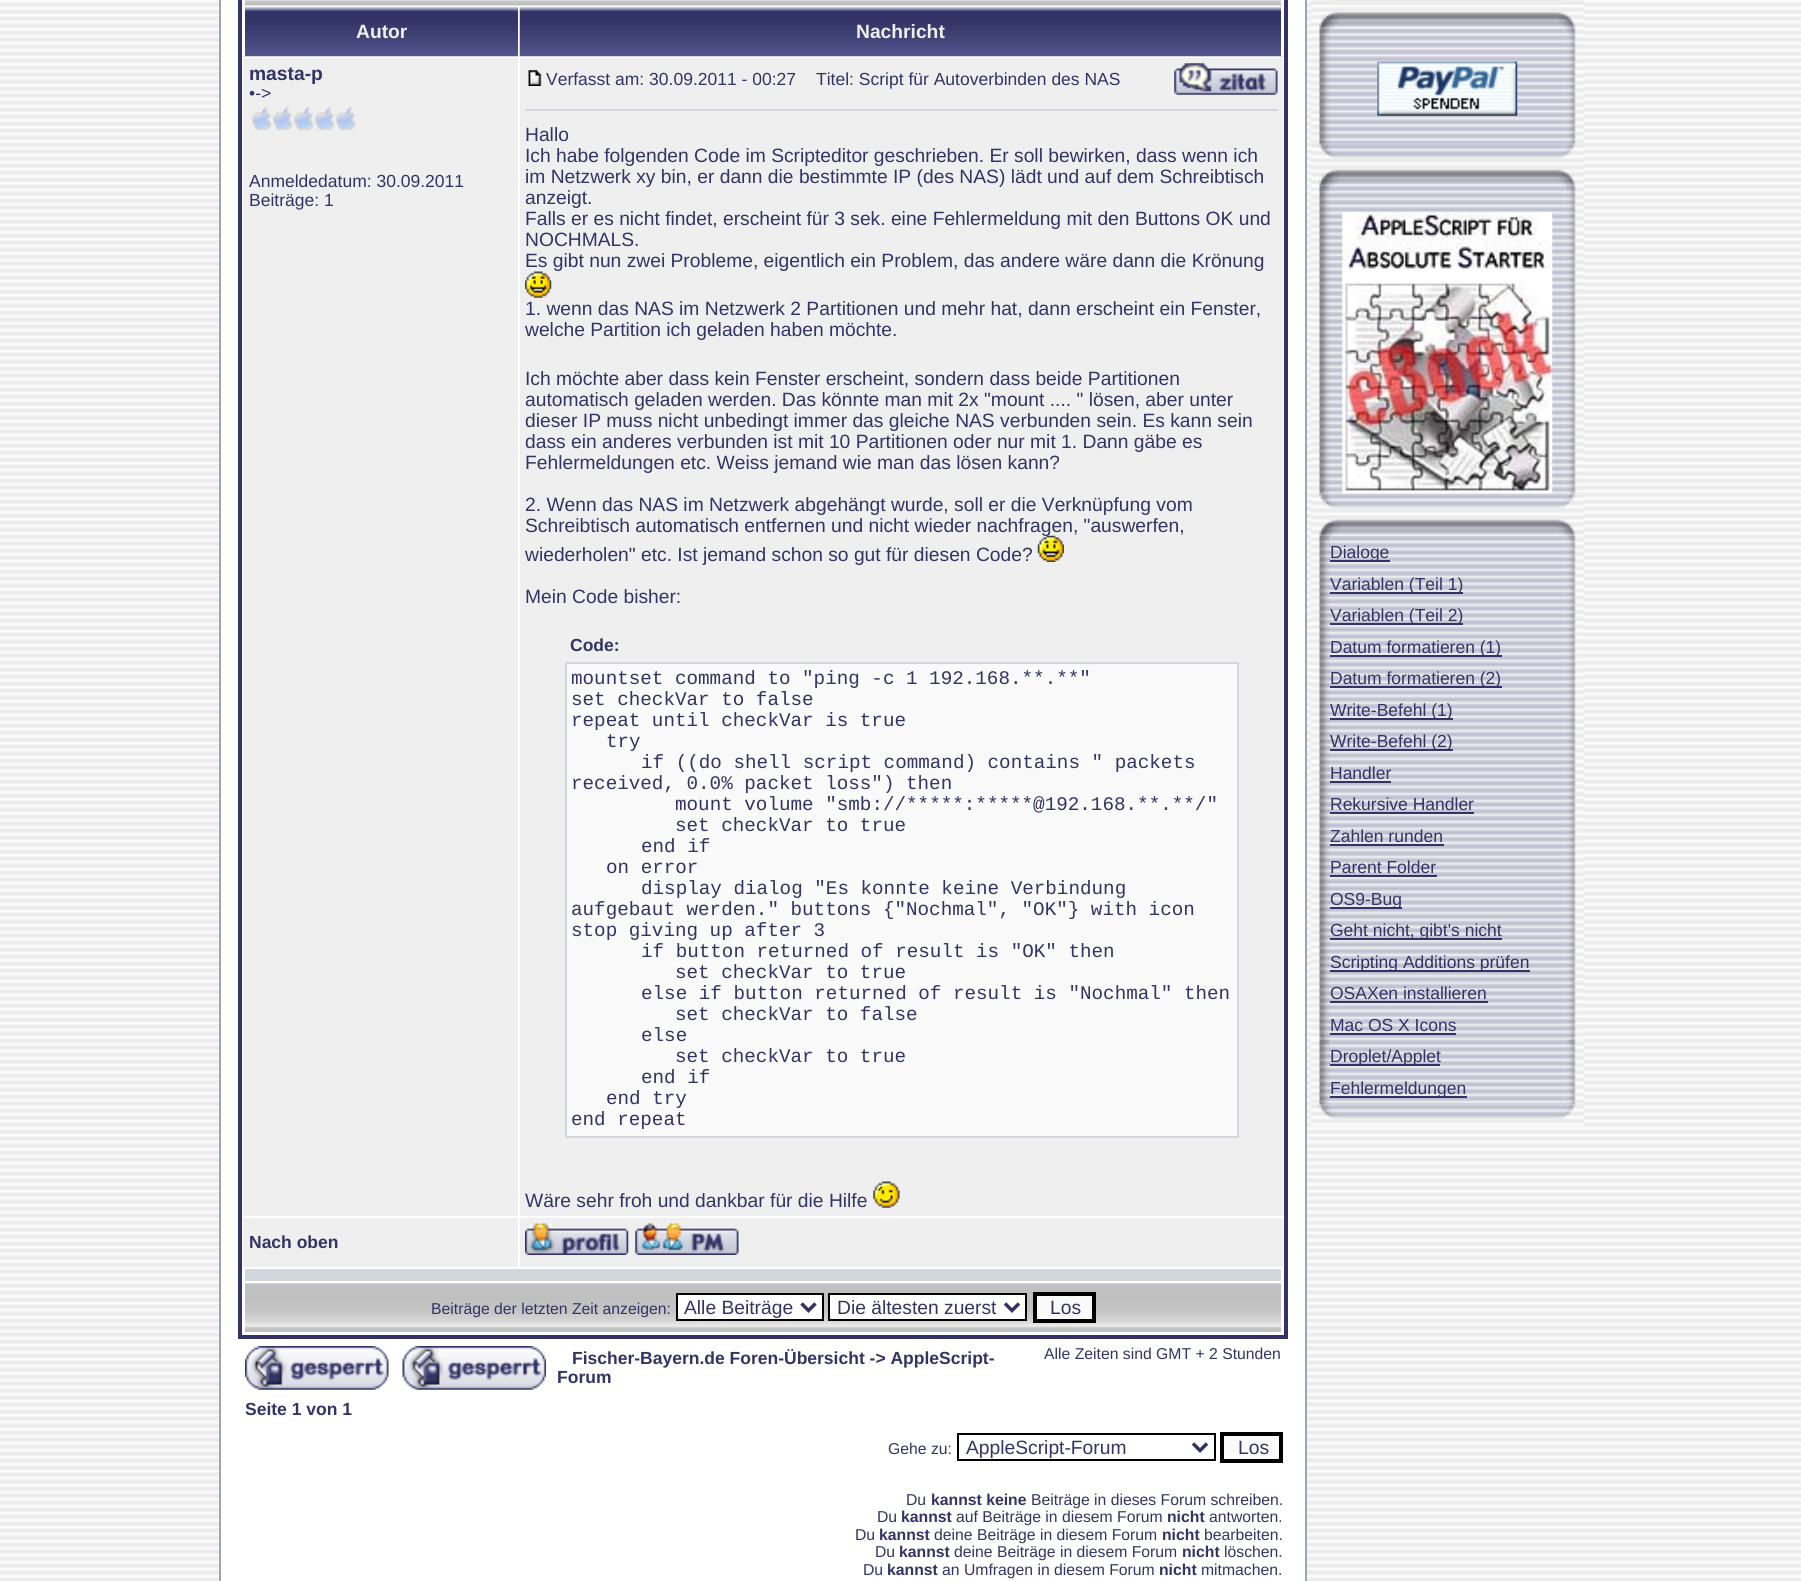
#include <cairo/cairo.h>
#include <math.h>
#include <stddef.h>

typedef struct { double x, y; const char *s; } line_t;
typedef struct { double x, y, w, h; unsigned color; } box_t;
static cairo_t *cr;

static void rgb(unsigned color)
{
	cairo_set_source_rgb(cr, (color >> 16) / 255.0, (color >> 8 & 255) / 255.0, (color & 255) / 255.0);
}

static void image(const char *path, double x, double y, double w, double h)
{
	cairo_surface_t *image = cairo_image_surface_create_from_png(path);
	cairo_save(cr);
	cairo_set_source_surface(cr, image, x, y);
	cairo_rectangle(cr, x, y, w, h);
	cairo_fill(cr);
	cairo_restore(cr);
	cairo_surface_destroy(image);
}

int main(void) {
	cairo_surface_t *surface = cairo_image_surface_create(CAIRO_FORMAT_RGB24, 1801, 1581);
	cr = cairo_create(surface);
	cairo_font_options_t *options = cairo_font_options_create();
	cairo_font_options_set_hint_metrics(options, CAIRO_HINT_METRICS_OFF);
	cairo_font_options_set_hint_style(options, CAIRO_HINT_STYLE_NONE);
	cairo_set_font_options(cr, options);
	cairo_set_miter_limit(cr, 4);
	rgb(0xffffff);
	cairo_paint(cr);
	image("img/1.png", 0, 0, 1801, 1581);
	rgb(0xffffff);
	cairo_rectangle(cr, 220, -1, 1086, 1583);
	cairo_fill_preserve(cr);
	rgb(0x98aab1);
	cairo_stroke(cr);
	cairo_rectangle(cr, 240, -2, 1046, 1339);
	rgb(0x333366);
	cairo_set_line_width(cr, 4);
	cairo_stroke(cr);
	image("img/2.png", 243, 0, 1040, 6);
	rgb(0xffffff);
	cairo_rectangle(cr, 1281, 0, 2, 5);
	cairo_fill(cr);
	cairo_rectangle(cr, 243, 0, 2, 5);
	cairo_fill(cr);
	image("img/3.png", 243, 7, 275, 50);
	cairo_rectangle(cr, 243, 7, 2, 49);
	cairo_fill(cr);
	image("img/4.png", 519, 7, 764, 50);
	cairo_rectangle(cr, 1281, 7, 2, 49);
	cairo_fill(cr);
	rgb(0xefefef);
	cairo_rectangle(cr, 243, 58, 275, 1158);
	cairo_fill(cr);
	image("img/5.png", 251, 106, 105, 25);
	cairo_rectangle(cr, 520, 58, 763, 1158);
	cairo_fill(cr);
	image("img/6.png", 528, 70, 14, 16);
	image("img/7.png", 1174, 63, 104, 32);
	rgb(0xd1d7dc);
	cairo_rectangle(cr, 525, 109, 753, 2);
	cairo_fill(cr);
	image("img/8.png", 525, 271, 27, 27);
	rgb(0xfafafa);
	cairo_rectangle(cr, 566, 663, 672, 474);
	cairo_fill_preserve(cr);
	rgb(0xd1d7dc);
	cairo_set_line_width(cr, 2);
	cairo_stroke(cr);
	image("img/10.png", 873, 1181, 27, 27);
	rgb(0xefefef);
	cairo_rectangle(cr, 243, 1218, 275, 49);
	cairo_fill(cr);
	cairo_rectangle(cr, 520, 1218, 763, 49);
	cairo_fill(cr);
	image("img/11.png", 525, 1223, 104, 32);
	image("img/12.png", 635, 1223, 104, 32);
	rgb(0xd1d7dc);
	cairo_rectangle(cr, 245, 1269, 1036, 12);
	cairo_fill(cr);
	image("img/13.png", 245, 1283, 1036, 49);
	rgb(0xffffff);
	cairo_rectangle(cr, 677, 1294, 146, 26);
	cairo_fill_preserve(cr);
	rgb(0x000000);
	cairo_stroke(cr);
	cairo_new_path(cr);
	cairo_move_to(cr, 801.5, 1303.5);
	cairo_line_to(cr, 808.5, 1310.5);
	cairo_line_to(cr, 815.5, 1303.5);
	rgb(0x333366);
	cairo_set_line_width(cr, 3.5);
	cairo_stroke(cr);
	rgb(0xffffff);
	cairo_rectangle(cr, 829, 1294, 197, 26);
	cairo_fill_preserve(cr);
	rgb(0x000000);
	cairo_set_line_width(cr, 2);
	cairo_stroke(cr);
	cairo_new_path(cr);
	cairo_move_to(cr, 1005, 1303.5);
	cairo_line_to(cr, 1012, 1310.5);
	cairo_line_to(cr, 1019, 1303.5);
	rgb(0x333366);
	cairo_set_line_width(cr, 3.5);
	cairo_stroke(cr);
	rgb(0xfafafa);
	cairo_rectangle(cr, 1035, 1294, 59, 27);
	cairo_fill_preserve(cr);
	rgb(0x000000);
	cairo_set_line_width(cr, 4);
	cairo_stroke(cr);
	image("img/14.png", 245, 1346, 144, 44);
	image("img/15.png", 402, 1346, 144, 44);
	cairo_rectangle(cr, 958, 1434, 257, 26);
	cairo_set_line_width(cr, 2);
	cairo_stroke(cr);
	cairo_new_path(cr);
	cairo_move_to(cr, 1193, 1443.5);
	cairo_line_to(cr, 1200, 1450.5);
	cairo_line_to(cr, 1207, 1443.5);
	rgb(0x333366);
	cairo_set_line_width(cr, 3.5);
	cairo_stroke(cr);
	rgb(0xfafafa);
	cairo_rectangle(cr, 1222, 1434, 59, 27);
	cairo_fill_preserve(cr);
	rgb(0x000000);
	cairo_set_line_width(cr, 4);
	cairo_stroke(cr);
	image("img/16.png", 1311, 0, 273, 7);
	image("img/18.png", 1310, 28, 20, 116);
	image("img/19.png", 1330, 28, 235, 116);
	image("img/21.png", 1564, 28, 20, 116);
	image("img/17.png", 1311, 7, 273, 22);
	image("img/20.png", 1377, 61, 141, 55);
	image("img/22.png", 1311, 143, 273, 22);
	image("img/24.png", 1310, 185, 20, 309);
	image("img/25.png", 1330, 186, 235, 308);
	image("img/27.png", 1564, 185, 20, 309);
	image("img/23.png", 1311, 165, 273, 21);
	image("img/26.png", 1342, 212, 211, 282);
	image("img/28.png", 1311, 493, 273, 22);
	image("img/30.png", 1310, 535, 20, 570);
	image("img/31.png", 1330, 536, 235, 569);
	image("img/32.png", 1564, 535, 20, 570);
	image("img/29.png", 1311, 515, 273, 21);
	{
		static const box_t items[] = {
			{1330, 560, 60, 2, 0x333366},
			{1330, 592, 133, 2, 0x333366},
			{1330, 623, 133, 2, 0x333366},
			{1330, 655, 172, 2, 0x333366},
			{1330, 686, 172, 2, 0x333366},
			{1330, 718, 123, 2, 0x333366},
			{1330, 749, 123, 2, 0x333366},
			{1330, 781, 61, 2, 0x333366},
			{1330, 812, 144, 2, 0x333366},
			{1330, 844, 114, 2, 0x333366},
			{1330, 875, 107, 2, 0x333366},
			{1330, 907, 72, 2, 0x333366},
			{1330, 938, 172, 2, 0x333366},
			{1330, 970, 200, 2, 0x333366},
			{1330, 1001, 158, 2, 0x333366},
			{1330, 1033, 126, 2, 0x333366},
			{1330, 1064, 110, 2, 0x333366},
			{1330, 1096, 137, 2, 0x333366},
		};
		for (size_t i = 0; i < sizeof items / sizeof *items; i++) {
			rgb(items[i].color);
			cairo_rectangle(cr, items[i].x, items[i].y, items[i].w, items[i].h);
			cairo_fill(cr);
		}
	}
	image("img/33.png", 1310, 1104, 274, 22);
	cairo_select_font_face(cr, "Liberation Sans", CAIRO_FONT_SLANT_NORMAL, CAIRO_FONT_WEIGHT_BOLD);
	cairo_set_font_size(cr, 19.25);
	rgb(0xefefef);
	cairo_move_to(cr, 356, 38);
	cairo_show_text(cr, "Autor");
	cairo_move_to(cr, 856, 38);
	cairo_show_text(cr, "Nachricht");
	rgb(0x333366);
	cairo_move_to(cr, 249, 80);
	cairo_show_text(cr, "masta-p");
	cairo_select_font_face(cr, "Liberation Sans", CAIRO_FONT_SLANT_NORMAL, CAIRO_FONT_WEIGHT_NORMAL);
	cairo_set_font_size(cr, 17.5);
	{
		static const line_t items[] = {
			{249, 99, "•->"},
			{249, 187, "Anmeldedatum: 30.09.2011"},
			{249, 206, "Beiträge: 1"},
			{546, 85, "Verfasst am: 30.09.2011 - 00:27"},
			{816, 85, "Titel: Script für Autoverbinden des NAS"},
		};
		for (size_t i = 0; i < sizeof items / sizeof *items; i++) {
			cairo_move_to(cr, items[i].x, items[i].y);
			cairo_show_text(cr, items[i].s);
		}
	}
	cairo_set_font_size(cr, 19.25);
	{
		static const line_t items[] = {
			{525, 141, "Hallo"},
			{525, 162, "Ich habe folgenden Code im Scripteditor geschrieben. Er soll bewirken, dass wenn ich"},
			{525, 183, "im Netzwerk xy bin, er dann die bestimmte IP (des NAS) lädt und auf dem Schreibtisch"},
			{525, 204, "anzeigt."},
			{525, 225, "Falls er es nicht findet, erscheint für 3 sek. eine Fehlermeldung mit den Buttons OK und"},
			{525, 246, "NOCHMALS."},
			{525, 267, "Es gibt nun zwei Probleme, eigentlich ein Problem, das andere wäre dann die Krönung"},
			{525, 315, "1. wenn das NAS im Netzwerk 2 Partitionen und mehr hat, dann erscheint ein Fenster,"},
			{525, 336, "welche Partition ich geladen haben möchte."},
			{525, 385, "Ich möchte aber dass kein Fenster erscheint, sondern dass beide Partitionen"},
			{525, 406, "automatisch geladen werden. Das könnte man mit 2x \"mount .... \" lösen, aber unter"},
			{525, 427, "dieser IP muss nicht unbedingt immer das gleiche NAS verbunden sein. Es kann sein"},
			{525, 448, "dass ein anderes verbunden ist mit 10 Partitionen oder nur mit 1. Dann gäbe es"},
			{525, 469, "Fehlermeldungen etc. Weiss jemand wie man das lösen kann?"},
			{525, 511, "2. Wenn das NAS im Netzwerk abgehängt wurde, soll er die Verknüpfung vom"},
			{525, 532, "Schreibtisch automatisch entfernen und nicht wieder nachfragen, \"auswerfen,"},
			{525, 561, "wiederholen\" etc. Ist jemand schon so gut für diesen Code?"},
		};
		for (size_t i = 0; i < sizeof items / sizeof *items; i++) {
			cairo_move_to(cr, items[i].x, items[i].y);
			cairo_show_text(cr, items[i].s);
		}
	}
	image("img/9.png", 1037, 535, 27, 27);
	cairo_move_to(cr, 525, 603);
	cairo_show_text(cr, "Mein Code bisher:");
	cairo_select_font_face(cr, "Liberation Sans", CAIRO_FONT_SLANT_NORMAL, CAIRO_FONT_WEIGHT_BOLD);
	cairo_set_font_size(cr, 17.5);
	cairo_move_to(cr, 570, 651);
	cairo_show_text(cr, "Code:");
	cairo_select_font_face(cr, "Liberation Mono", CAIRO_FONT_SLANT_NORMAL, CAIRO_FONT_WEIGHT_NORMAL);
	cairo_set_font_size(cr, 19.25);
	{
		static const line_t items[] = {
			{571, 684, "mountset command to \"ping -c 1 192.168.**.**\""},
			{571, 705, "set checkVar to false"},
			{571, 726, "repeat until checkVar is true"},
			{606, 747, "try"},
			{641, 768, "if ((do shell script command) contains \" packets"},
			{571, 789, "received, 0.0% packet loss\") then"},
			{675, 810, "mount volume \"smb://*****:*****@192.168.**.**/\""},
			{675, 831, "set checkVar to true"},
			{641, 852, "end if"},
			{606, 873, "on error"},
			{641, 894, "display dialog \"Es konnte keine Verbindung"},
			{571, 915, "aufgebaut werden.\" buttons {\"Nochmal\", \"OK\"} with icon"},
			{571, 936, "stop giving up after 3"},
			{641, 957, "if button returned of result is \"OK\" then"},
			{675, 978, "set checkVar to true"},
			{641, 999, "else if button returned of result is \"Nochmal\" then"},
			{675, 1020, "set checkVar to false"},
			{641, 1041, "else"},
			{675, 1062, "set checkVar to true"},
			{641, 1083, "end if"},
			{606, 1104, "end try"},
			{571, 1125, "end repeat"},
		};
		for (size_t i = 0; i < sizeof items / sizeof *items; i++) {
			cairo_move_to(cr, items[i].x, items[i].y);
			cairo_show_text(cr, items[i].s);
		}
	}
	cairo_select_font_face(cr, "Liberation Sans", CAIRO_FONT_SLANT_NORMAL, CAIRO_FONT_WEIGHT_NORMAL);
	cairo_move_to(cr, 525, 1207);
	cairo_show_text(cr, "Wäre sehr froh und dankbar für die Hilfe");
	cairo_select_font_face(cr, "Liberation Sans", CAIRO_FONT_SLANT_NORMAL, CAIRO_FONT_WEIGHT_BOLD);
	cairo_set_font_size(cr, 17.5);
	cairo_move_to(cr, 249, 1248);
	cairo_show_text(cr, "Nach oben");
	cairo_select_font_face(cr, "Liberation Sans", CAIRO_FONT_SLANT_NORMAL, CAIRO_FONT_WEIGHT_NORMAL);
	cairo_set_font_size(cr, 15.75);
	cairo_move_to(cr, 431, 1314);
	cairo_show_text(cr, "Beiträge der letzten Zeit anzeigen:");
	cairo_set_font_size(cr, 19.25);
	{
		static const line_t items[] = {
			{684, 1314, "Alle Beiträge"},
			{837, 1314, "Die ältesten zuerst"},
			{1050, 1314, "Los"},
		};
		for (size_t i = 0; i < sizeof items / sizeof *items; i++) {
			cairo_move_to(cr, items[i].x, items[i].y);
			cairo_show_text(cr, items[i].s);
		}
	}
	cairo_select_font_face(cr, "Liberation Sans", CAIRO_FONT_SLANT_NORMAL, CAIRO_FONT_WEIGHT_BOLD);
	cairo_set_font_size(cr, 17.5);
	cairo_move_to(cr, 572, 1364);
	cairo_show_text(cr, "Fischer-Bayern.de Foren-Übersicht -> AppleScript-");
	cairo_move_to(cr, 557, 1383);
	cairo_show_text(cr, "Forum");
	cairo_select_font_face(cr, "Liberation Sans", CAIRO_FONT_SLANT_NORMAL, CAIRO_FONT_WEIGHT_NORMAL);
	cairo_set_font_size(cr, 15.75);
	cairo_move_to(cr, 1044, 1359);
	cairo_show_text(cr, "Alle Zeiten sind GMT + 2 Stunden");
	cairo_select_font_face(cr, "Liberation Sans", CAIRO_FONT_SLANT_NORMAL, CAIRO_FONT_WEIGHT_BOLD);
	cairo_set_font_size(cr, 17.5);
	cairo_move_to(cr, 245, 1415);
	cairo_show_text(cr, "Seite 1 von 1");
	cairo_select_font_face(cr, "Liberation Sans", CAIRO_FONT_SLANT_NORMAL, CAIRO_FONT_WEIGHT_NORMAL);
	cairo_set_font_size(cr, 15.75);
	cairo_move_to(cr, 888, 1454);
	cairo_show_text(cr, "Gehe zu:");
	cairo_set_font_size(cr, 19.25);
	cairo_move_to(cr, 966, 1454);
	cairo_show_text(cr, "AppleScript-Forum");
	cairo_move_to(cr, 1238, 1454);
	cairo_show_text(cr, "Los");
	cairo_set_font_size(cr, 15.75);
	cairo_move_to(cr, 906, 1505);
	cairo_show_text(cr, "Du");
	cairo_select_font_face(cr, "Liberation Sans", CAIRO_FONT_SLANT_NORMAL, CAIRO_FONT_WEIGHT_BOLD);
	cairo_move_to(cr, 931, 1505);
	cairo_show_text(cr, "kannst keine");
	cairo_select_font_face(cr, "Liberation Sans", CAIRO_FONT_SLANT_NORMAL, CAIRO_FONT_WEIGHT_NORMAL);
	cairo_move_to(cr, 1031, 1505);
	cairo_show_text(cr, "Beiträge in dieses Forum schreiben.");
	cairo_move_to(cr, 877, 1522);
	cairo_show_text(cr, "Du");
	cairo_select_font_face(cr, "Liberation Sans", CAIRO_FONT_SLANT_NORMAL, CAIRO_FONT_WEIGHT_BOLD);
	cairo_move_to(cr, 901, 1522);
	cairo_show_text(cr, "kannst");
	cairo_select_font_face(cr, "Liberation Sans", CAIRO_FONT_SLANT_NORMAL, CAIRO_FONT_WEIGHT_NORMAL);
	cairo_move_to(cr, 956, 1522);
	cairo_show_text(cr, "auf Beiträge in diesem Forum");
	cairo_select_font_face(cr, "Liberation Sans", CAIRO_FONT_SLANT_NORMAL, CAIRO_FONT_WEIGHT_BOLD);
	cairo_move_to(cr, 1167, 1522);
	cairo_show_text(cr, "nicht");
	cairo_select_font_face(cr, "Liberation Sans", CAIRO_FONT_SLANT_NORMAL, CAIRO_FONT_WEIGHT_NORMAL);
	cairo_move_to(cr, 1209, 1522);
	cairo_show_text(cr, "antworten.");
	cairo_move_to(cr, 855, 1540);
	cairo_show_text(cr, "Du");
	cairo_select_font_face(cr, "Liberation Sans", CAIRO_FONT_SLANT_NORMAL, CAIRO_FONT_WEIGHT_BOLD);
	cairo_move_to(cr, 879, 1540);
	cairo_show_text(cr, "kannst");
	cairo_select_font_face(cr, "Liberation Sans", CAIRO_FONT_SLANT_NORMAL, CAIRO_FONT_WEIGHT_NORMAL);
	cairo_move_to(cr, 934, 1540);
	cairo_show_text(cr, "deine Beiträge in diesem Forum");
	cairo_select_font_face(cr, "Liberation Sans", CAIRO_FONT_SLANT_NORMAL, CAIRO_FONT_WEIGHT_BOLD);
	cairo_move_to(cr, 1162, 1540);
	cairo_show_text(cr, "nicht");
	cairo_select_font_face(cr, "Liberation Sans", CAIRO_FONT_SLANT_NORMAL, CAIRO_FONT_WEIGHT_NORMAL);
	cairo_move_to(cr, 1204, 1540);
	cairo_show_text(cr, "bearbeiten.");
	cairo_move_to(cr, 875, 1557);
	cairo_show_text(cr, "Du");
	cairo_select_font_face(cr, "Liberation Sans", CAIRO_FONT_SLANT_NORMAL, CAIRO_FONT_WEIGHT_BOLD);
	cairo_move_to(cr, 899, 1557);
	cairo_show_text(cr, "kannst");
	cairo_select_font_face(cr, "Liberation Sans", CAIRO_FONT_SLANT_NORMAL, CAIRO_FONT_WEIGHT_NORMAL);
	cairo_move_to(cr, 954, 1557);
	cairo_show_text(cr, "deine Beiträge in diesem Forum");
	cairo_select_font_face(cr, "Liberation Sans", CAIRO_FONT_SLANT_NORMAL, CAIRO_FONT_WEIGHT_BOLD);
	cairo_move_to(cr, 1182, 1557);
	cairo_show_text(cr, "nicht");
	cairo_select_font_face(cr, "Liberation Sans", CAIRO_FONT_SLANT_NORMAL, CAIRO_FONT_WEIGHT_NORMAL);
	cairo_move_to(cr, 1224, 1557);
	cairo_show_text(cr, "löschen.");
	cairo_move_to(cr, 863, 1575);
	cairo_show_text(cr, "Du");
	cairo_select_font_face(cr, "Liberation Sans", CAIRO_FONT_SLANT_NORMAL, CAIRO_FONT_WEIGHT_BOLD);
	cairo_move_to(cr, 887, 1575);
	cairo_show_text(cr, "kannst");
	cairo_select_font_face(cr, "Liberation Sans", CAIRO_FONT_SLANT_NORMAL, CAIRO_FONT_WEIGHT_NORMAL);
	cairo_move_to(cr, 942, 1575);
	cairo_show_text(cr, "an Umfragen in diesem Forum");
	cairo_select_font_face(cr, "Liberation Sans", CAIRO_FONT_SLANT_NORMAL, CAIRO_FONT_WEIGHT_BOLD);
	cairo_move_to(cr, 1159, 1575);
	cairo_show_text(cr, "nicht");
	cairo_select_font_face(cr, "Liberation Sans", CAIRO_FONT_SLANT_NORMAL, CAIRO_FONT_WEIGHT_NORMAL);
	cairo_move_to(cr, 1201, 1575);
	cairo_show_text(cr, "mitmachen.");
	cairo_set_font_size(cr, 17.5);
	{
		static const line_t items[] = {
			{1330, 558, "Dialoge"},
			{1330, 590, "Variablen (Teil 1)"},
			{1330, 621, "Variablen (Teil 2)"},
			{1330, 653, "Datum formatieren (1)"},
			{1330, 684, "Datum formatieren (2)"},
			{1330, 716, "Write-Befehl (1)"},
			{1330, 747, "Write-Befehl (2)"},
			{1330, 779, "Handler"},
			{1330, 810, "Rekursive Handler"},
			{1330, 842, "Zahlen runden"},
			{1330, 873, "Parent Folder"},
			{1330, 905, "OS9-Bug"},
			{1330, 936, "Geht nicht, gibt's nicht"},
			{1330, 968, "Scripting Additions prüfen"},
			{1330, 999, "OSAXen installieren"},
			{1330, 1031, "Mac OS X Icons"},
			{1330, 1062, "Droplet/Applet"},
			{1330, 1094, "Fehlermeldungen"},
		};
		for (size_t i = 0; i < sizeof items / sizeof *items; i++) {
			cairo_move_to(cr, items[i].x, items[i].y);
			cairo_show_text(cr, items[i].s);
		}
	}
	cairo_surface_write_to_png(surface, "page.png");
	cairo_font_options_destroy(options);
	cairo_destroy(cr);
	cairo_surface_destroy(surface);
	return 0;
}
